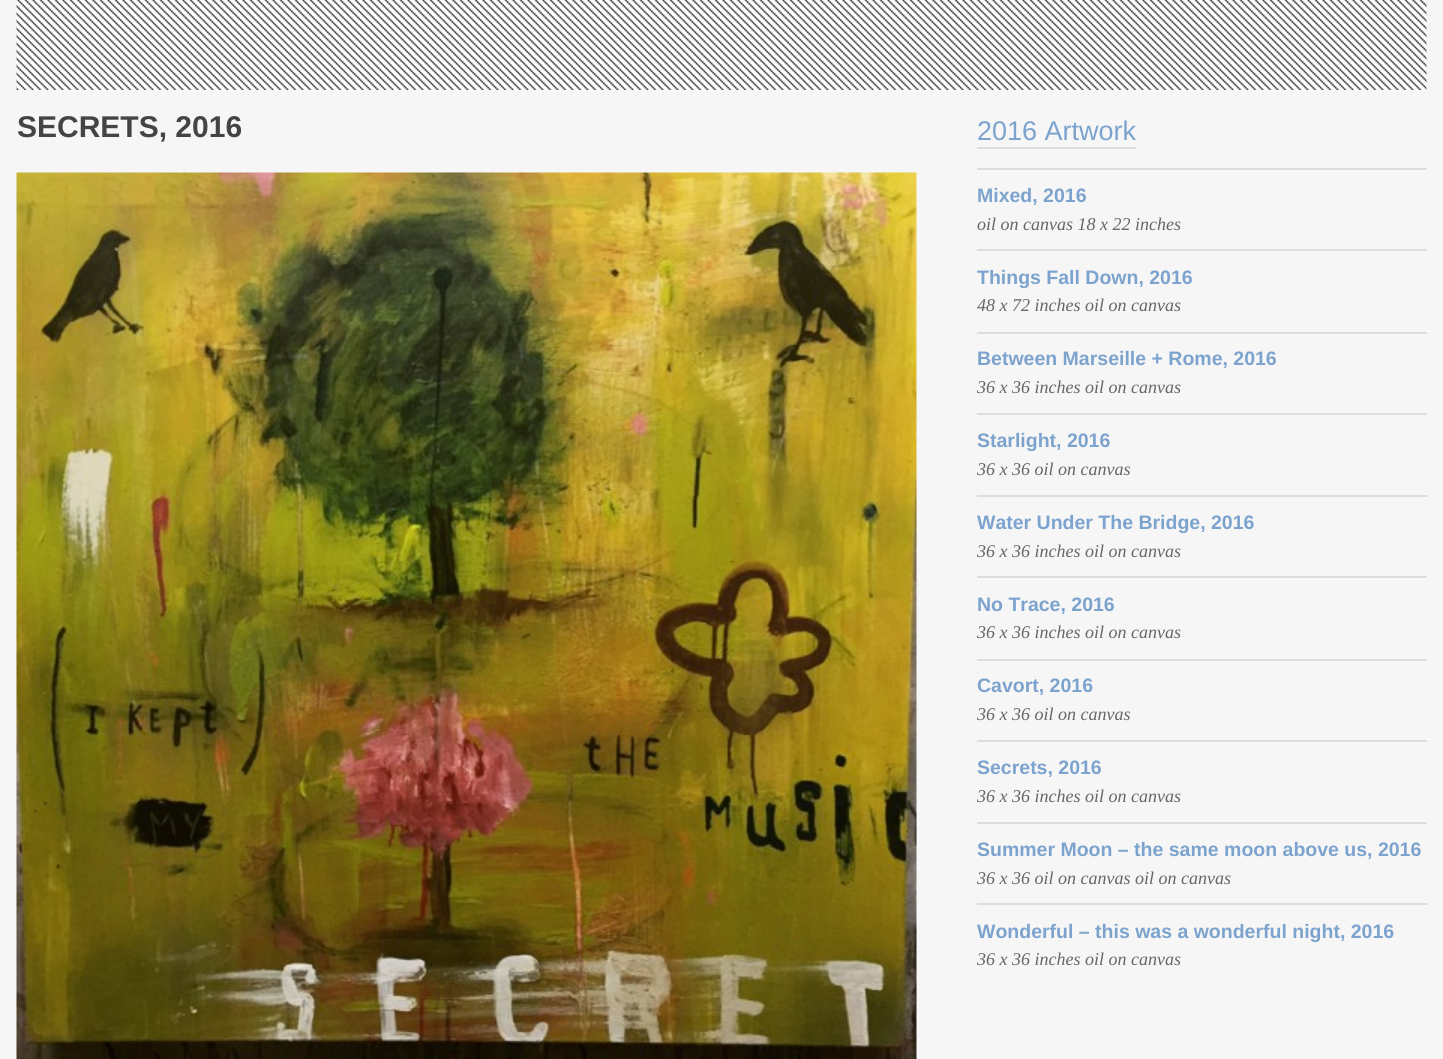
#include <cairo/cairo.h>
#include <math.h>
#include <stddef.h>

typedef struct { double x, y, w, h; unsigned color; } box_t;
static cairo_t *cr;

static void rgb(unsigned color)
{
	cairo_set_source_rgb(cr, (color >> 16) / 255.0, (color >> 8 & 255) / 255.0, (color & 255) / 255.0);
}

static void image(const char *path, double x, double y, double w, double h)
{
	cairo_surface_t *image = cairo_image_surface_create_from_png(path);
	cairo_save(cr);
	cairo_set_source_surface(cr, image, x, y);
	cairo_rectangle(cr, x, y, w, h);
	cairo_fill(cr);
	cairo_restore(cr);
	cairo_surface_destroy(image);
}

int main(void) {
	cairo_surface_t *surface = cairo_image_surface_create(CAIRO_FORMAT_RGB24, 1443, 1059);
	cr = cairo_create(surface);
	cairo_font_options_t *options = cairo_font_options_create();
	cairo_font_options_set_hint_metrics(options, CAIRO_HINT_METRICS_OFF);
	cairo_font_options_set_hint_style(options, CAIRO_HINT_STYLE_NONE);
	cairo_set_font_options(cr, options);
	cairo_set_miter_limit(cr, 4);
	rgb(0xf6f6f6);
	cairo_paint(cr);
	image("img/1.png", 16, 0, 1411, 90);
	image("img/2.png", 16, 172, 901, 887);
	{
		static const box_t items[] = {
			{977, 147, 159, 2, 0xdddddd},
			{977, 168, 450, 2, 0xdddddd},
			{977, 249, 450, 2, 0xdddddd},
			{977, 332, 450, 2, 0xdddddd},
			{977, 413, 450, 2, 0xdddddd},
			{977, 495, 450, 2, 0xdddddd},
			{977, 576, 450, 2, 0xdddddd},
			{977, 659, 450, 2, 0xdddddd},
			{977, 740, 450, 2, 0xdddddd},
			{977, 822, 450, 2, 0xdddddd},
			{977, 903, 450, 2, 0xdddddd},
		};
		for (size_t i = 0; i < sizeof items / sizeof *items; i++) {
			rgb(items[i].color);
			cairo_rectangle(cr, items[i].x, items[i].y, items[i].w, items[i].h);
			cairo_fill(cr);
		}
	}
	cairo_select_font_face(cr, "Liberation Sans", CAIRO_FONT_SLANT_NORMAL, CAIRO_FONT_WEIGHT_BOLD);
	cairo_set_font_size(cr, 30);
	rgb(0x444444);
	cairo_move_to(cr, 17, 137);
	cairo_show_text(cr, "SECRETS, 2016");
	cairo_select_font_face(cr, "Liberation Sans", CAIRO_FONT_SLANT_NORMAL, CAIRO_FONT_WEIGHT_NORMAL);
	cairo_set_font_size(cr, 27);
	rgb(0x7ca3ce);
	cairo_move_to(cr, 977, 140);
	cairo_show_text(cr, "2016 Artwork");
	cairo_select_font_face(cr, "Liberation Sans", CAIRO_FONT_SLANT_NORMAL, CAIRO_FONT_WEIGHT_BOLD);
	cairo_set_font_size(cr, 19.5);
	cairo_move_to(cr, 977, 202);
	cairo_show_text(cr, "Mixed, 2016");
	cairo_select_font_face(cr, "Liberation Serif", CAIRO_FONT_SLANT_ITALIC, CAIRO_FONT_WEIGHT_NORMAL);
	cairo_set_font_size(cr, 18);
	rgb(0x666666);
	cairo_move_to(cr, 977, 230);
	cairo_show_text(cr, "oil on canvas 18 x 22 inches");
	cairo_select_font_face(cr, "Liberation Sans", CAIRO_FONT_SLANT_NORMAL, CAIRO_FONT_WEIGHT_BOLD);
	cairo_set_font_size(cr, 19.5);
	rgb(0x7ca3ce);
	cairo_move_to(cr, 977, 284);
	cairo_show_text(cr, "Things Fall Down, 2016");
	cairo_select_font_face(cr, "Liberation Serif", CAIRO_FONT_SLANT_ITALIC, CAIRO_FONT_WEIGHT_NORMAL);
	cairo_set_font_size(cr, 18);
	rgb(0x666666);
	cairo_move_to(cr, 977, 311);
	cairo_show_text(cr, "48 x 72 inches oil on canvas");
	cairo_select_font_face(cr, "Liberation Sans", CAIRO_FONT_SLANT_NORMAL, CAIRO_FONT_WEIGHT_BOLD);
	cairo_set_font_size(cr, 19.5);
	rgb(0x7ca3ce);
	cairo_move_to(cr, 977, 365);
	cairo_show_text(cr, "Between Marseille + Rome, 2016");
	cairo_select_font_face(cr, "Liberation Serif", CAIRO_FONT_SLANT_ITALIC, CAIRO_FONT_WEIGHT_NORMAL);
	cairo_set_font_size(cr, 18);
	rgb(0x666666);
	cairo_move_to(cr, 977, 393);
	cairo_show_text(cr, "36 x 36 inches oil on canvas");
	cairo_select_font_face(cr, "Liberation Sans", CAIRO_FONT_SLANT_NORMAL, CAIRO_FONT_WEIGHT_BOLD);
	cairo_set_font_size(cr, 19.5);
	rgb(0x7ca3ce);
	cairo_move_to(cr, 977, 447);
	cairo_show_text(cr, "Starlight, 2016");
	cairo_select_font_face(cr, "Liberation Serif", CAIRO_FONT_SLANT_ITALIC, CAIRO_FONT_WEIGHT_NORMAL);
	cairo_set_font_size(cr, 18);
	rgb(0x666666);
	cairo_move_to(cr, 977, 475);
	cairo_show_text(cr, "36 x 36 oil on canvas");
	cairo_select_font_face(cr, "Liberation Sans", CAIRO_FONT_SLANT_NORMAL, CAIRO_FONT_WEIGHT_BOLD);
	cairo_set_font_size(cr, 19.5);
	rgb(0x7ca3ce);
	cairo_move_to(cr, 977, 529);
	cairo_show_text(cr, "Water Under The Bridge, 2016");
	cairo_select_font_face(cr, "Liberation Serif", CAIRO_FONT_SLANT_ITALIC, CAIRO_FONT_WEIGHT_NORMAL);
	cairo_set_font_size(cr, 18);
	rgb(0x666666);
	cairo_move_to(cr, 977, 557);
	cairo_show_text(cr, "36 x 36 inches oil on canvas");
	cairo_select_font_face(cr, "Liberation Sans", CAIRO_FONT_SLANT_NORMAL, CAIRO_FONT_WEIGHT_BOLD);
	cairo_set_font_size(cr, 19.5);
	rgb(0x7ca3ce);
	cairo_move_to(cr, 977, 611);
	cairo_show_text(cr, "No Trace, 2016");
	cairo_select_font_face(cr, "Liberation Serif", CAIRO_FONT_SLANT_ITALIC, CAIRO_FONT_WEIGHT_NORMAL);
	cairo_set_font_size(cr, 18);
	rgb(0x666666);
	cairo_move_to(cr, 977, 638);
	cairo_show_text(cr, "36 x 36 inches oil on canvas");
	cairo_select_font_face(cr, "Liberation Sans", CAIRO_FONT_SLANT_NORMAL, CAIRO_FONT_WEIGHT_BOLD);
	cairo_set_font_size(cr, 19.5);
	rgb(0x7ca3ce);
	cairo_move_to(cr, 977, 692);
	cairo_show_text(cr, "Cavort, 2016");
	cairo_select_font_face(cr, "Liberation Serif", CAIRO_FONT_SLANT_ITALIC, CAIRO_FONT_WEIGHT_NORMAL);
	cairo_set_font_size(cr, 18);
	rgb(0x666666);
	cairo_move_to(cr, 977, 720);
	cairo_show_text(cr, "36 x 36 oil on canvas");
	cairo_select_font_face(cr, "Liberation Sans", CAIRO_FONT_SLANT_NORMAL, CAIRO_FONT_WEIGHT_BOLD);
	cairo_set_font_size(cr, 19.5);
	rgb(0x7ca3ce);
	cairo_move_to(cr, 977, 774);
	cairo_show_text(cr, "Secrets, 2016");
	cairo_select_font_face(cr, "Liberation Serif", CAIRO_FONT_SLANT_ITALIC, CAIRO_FONT_WEIGHT_NORMAL);
	cairo_set_font_size(cr, 18);
	rgb(0x666666);
	cairo_move_to(cr, 977, 802);
	cairo_show_text(cr, "36 x 36 inches oil on canvas");
	cairo_select_font_face(cr, "Liberation Sans", CAIRO_FONT_SLANT_NORMAL, CAIRO_FONT_WEIGHT_BOLD);
	cairo_set_font_size(cr, 19.5);
	rgb(0x7ca3ce);
	cairo_move_to(cr, 977, 856);
	cairo_show_text(cr, "Summer Moon – the same moon above us, 2016");
	cairo_select_font_face(cr, "Liberation Serif", CAIRO_FONT_SLANT_ITALIC, CAIRO_FONT_WEIGHT_NORMAL);
	cairo_set_font_size(cr, 18);
	rgb(0x666666);
	cairo_move_to(cr, 977, 884);
	cairo_show_text(cr, "36 x 36 oil on canvas oil on canvas");
	cairo_select_font_face(cr, "Liberation Sans", CAIRO_FONT_SLANT_NORMAL, CAIRO_FONT_WEIGHT_BOLD);
	cairo_set_font_size(cr, 19.5);
	rgb(0x7ca3ce);
	cairo_move_to(cr, 977, 938);
	cairo_show_text(cr, "Wonderful – this was a wonderful night, 2016");
	cairo_select_font_face(cr, "Liberation Serif", CAIRO_FONT_SLANT_ITALIC, CAIRO_FONT_WEIGHT_NORMAL);
	cairo_set_font_size(cr, 18);
	rgb(0x666666);
	cairo_move_to(cr, 977, 965);
	cairo_show_text(cr, "36 x 36 inches oil on canvas");
	cairo_surface_write_to_png(surface, "page.png");
	cairo_font_options_destroy(options);
	cairo_destroy(cr);
	cairo_surface_destroy(surface);
	return 0;
}
